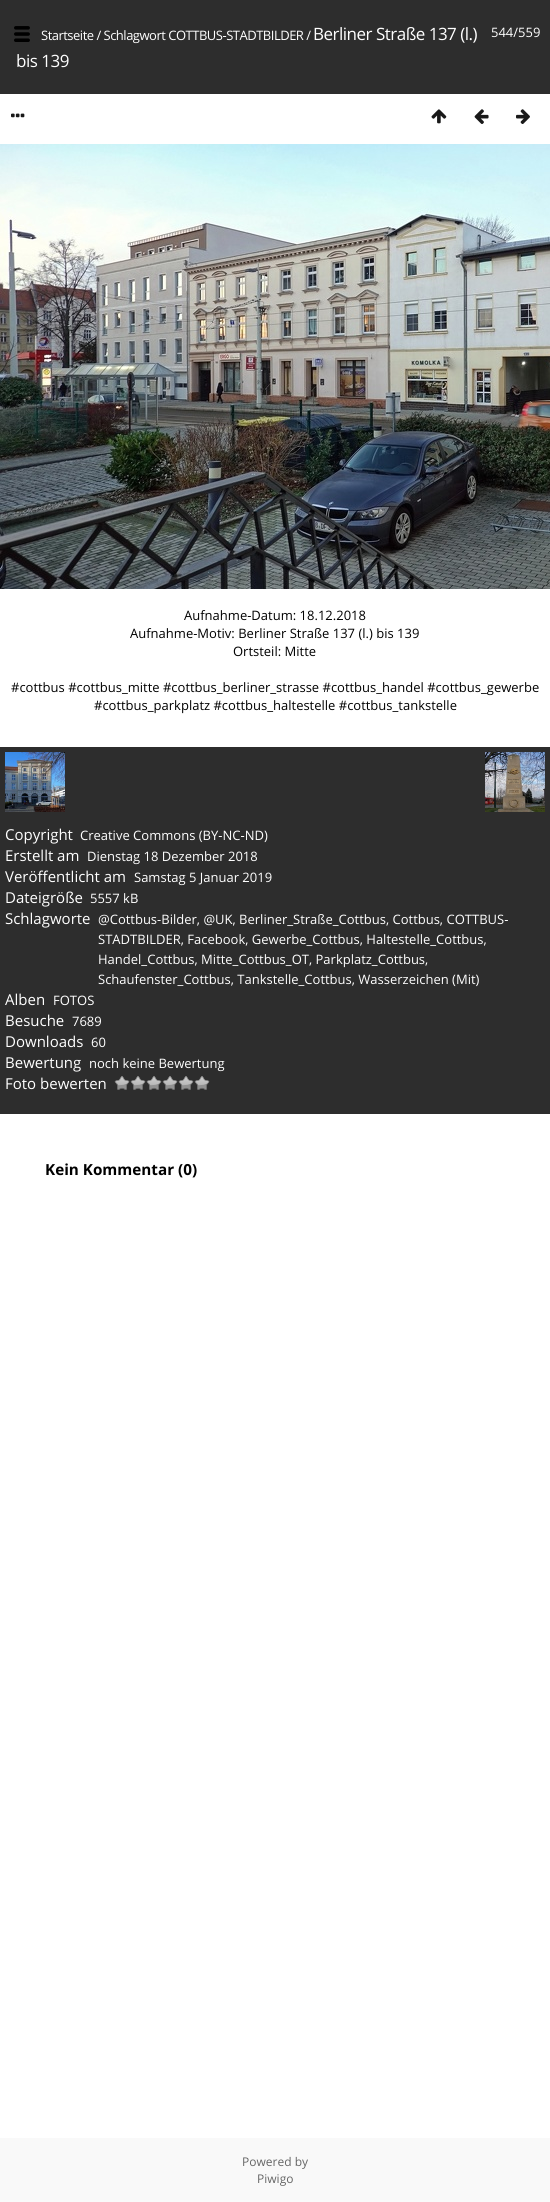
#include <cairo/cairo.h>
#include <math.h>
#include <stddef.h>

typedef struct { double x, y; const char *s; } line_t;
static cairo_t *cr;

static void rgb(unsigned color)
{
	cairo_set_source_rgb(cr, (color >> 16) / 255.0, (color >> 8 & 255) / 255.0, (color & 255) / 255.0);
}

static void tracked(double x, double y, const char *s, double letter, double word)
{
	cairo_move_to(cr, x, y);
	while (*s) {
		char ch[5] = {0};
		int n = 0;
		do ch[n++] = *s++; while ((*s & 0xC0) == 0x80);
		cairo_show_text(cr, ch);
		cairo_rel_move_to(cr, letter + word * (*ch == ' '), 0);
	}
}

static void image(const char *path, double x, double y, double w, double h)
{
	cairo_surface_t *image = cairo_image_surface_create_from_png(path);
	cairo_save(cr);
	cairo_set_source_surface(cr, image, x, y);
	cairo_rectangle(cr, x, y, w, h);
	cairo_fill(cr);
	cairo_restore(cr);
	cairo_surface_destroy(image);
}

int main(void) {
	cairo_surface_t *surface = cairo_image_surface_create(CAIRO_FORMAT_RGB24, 550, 2202);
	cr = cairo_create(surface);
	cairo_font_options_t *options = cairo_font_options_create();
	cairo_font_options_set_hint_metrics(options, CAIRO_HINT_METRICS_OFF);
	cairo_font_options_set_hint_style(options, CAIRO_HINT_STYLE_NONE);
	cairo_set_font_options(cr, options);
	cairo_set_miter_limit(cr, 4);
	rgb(0xffffff);
	cairo_paint(cr);
	rgb(0x2d2d2d);
	cairo_rectangle(cr, 0, 0, 550, 94);
	cairo_fill(cr);
	image("img/1.png", 14, 26, 16, 16);
	image("img/2.png", 11, 113, 14, 5);
	image("img/3.png", 431, 109, 16, 15);
	image("img/4.png", 474, 109, 15, 15);
	image("img/5.png", 516, 109, 14, 15);
	image("img/6.png", 0, 144, 550, 445);
	cairo_rectangle(cr, 0, 747, 550, 367);
	cairo_fill(cr);
	image("img/7.png", 5, 752, 60, 60);
	image("img/8.png", 485, 752, 60, 60);
	image("img/9.png", 114, 1076, 16, 14);
	image("img/9.png", 130, 1076, 16, 14);
	image("img/9.png", 146, 1076, 16, 14);
	image("img/9.png", 162, 1076, 16, 14);
	image("img/9.png", 178, 1076, 16, 14);
	image("img/9.png", 194, 1076, 16, 14);
	rgb(0xf9f9f9);
	cairo_rectangle(cr, 0, 2138, 550, 64);
	cairo_fill(cr);
	cairo_select_font_face(cr, "Open Sans", CAIRO_FONT_SLANT_NORMAL, CAIRO_FONT_WEIGHT_NORMAL);
	cairo_set_font_size(cr, 13);
	rgb(0xffffff);
	tracked(41, 40, "Startseite / Schlagwort COTTBUS-STADTBILDER /", -0.5, 0);
	cairo_set_font_size(cr, 17);
	tracked(313, 40, "Berliner Straße 137 (l.)", -0.5, 0);
	tracked(16, 67, "bis 139", -0.5, 0);
	cairo_set_font_size(cr, 13);
	cairo_move_to(cr, 491, 37);
	cairo_show_text(cr, "544/559");
	rgb(0x000000);
	{
		static const line_t items[] = {
			{184, 620, "Aufnahme-Datum: 18.12.2018"},
			{130, 638, "Aufnahme-Motiv: Berliner Straße 137 (l.) bis 139"},
			{233, 656, "Ortsteil: Mitte"},
			{11, 692, "#cottbus #cottbus_mitte #cottbus_berliner_strasse #cottbus_handel #cottbus_gewerbe"},
			{94, 710, "#cottbus_parkplatz #cottbus_haltestelle #cottbus_tankstelle"},
		};
		for (size_t i = 0; i < sizeof items / sizeof *items; i++) {
			cairo_move_to(cr, items[i].x, items[i].y);
			cairo_show_text(cr, items[i].s);
		}
	}
	cairo_set_font_size(cr, 15);
	rgb(0xffffff);
	cairo_move_to(cr, 5, 840);
	cairo_show_text(cr, "Copyright");
	cairo_set_font_size(cr, 13);
	cairo_move_to(cr, 80, 840);
	cairo_show_text(cr, "Creative Commons (BY-NC-ND)");
	cairo_set_font_size(cr, 15);
	cairo_move_to(cr, 5, 861);
	cairo_show_text(cr, "Erstellt am");
	cairo_set_font_size(cr, 13);
	cairo_move_to(cr, 87, 861);
	cairo_show_text(cr, "Dienstag 18 Dezember 2018");
	cairo_set_font_size(cr, 15);
	cairo_move_to(cr, 5, 882);
	cairo_show_text(cr, "Veröffentlicht am");
	cairo_set_font_size(cr, 13);
	cairo_move_to(cr, 134, 882);
	cairo_show_text(cr, "Samstag 5 Januar 2019");
	cairo_set_font_size(cr, 15);
	cairo_move_to(cr, 5, 903);
	cairo_show_text(cr, "Dateigröße");
	cairo_set_font_size(cr, 13);
	cairo_move_to(cr, 90, 903);
	cairo_show_text(cr, "5557 kB");
	cairo_set_font_size(cr, 15);
	cairo_move_to(cr, 5, 924);
	cairo_show_text(cr, "Schlagworte");
	cairo_set_font_size(cr, 13);
	{
		static const line_t items[] = {
			{98, 924, "@Cottbus-Bilder, @UK, Berliner_Straße_Cottbus, Cottbus, COTTBUS-"},
			{98, 944, "STADTBILDER, Facebook, Gewerbe_Cottbus, Haltestelle_Cottbus,"},
			{98, 964, "Handel_Cottbus, Mitte_Cottbus_OT, Parkplatz_Cottbus,"},
			{98, 984, "Schaufenster_Cottbus, Tankstelle_Cottbus, Wasserzeichen (Mit)"},
		};
		for (size_t i = 0; i < sizeof items / sizeof *items; i++) {
			cairo_move_to(cr, items[i].x, items[i].y);
			cairo_show_text(cr, items[i].s);
		}
	}
	cairo_set_font_size(cr, 15);
	cairo_move_to(cr, 5, 1005);
	cairo_show_text(cr, "Alben");
	cairo_set_font_size(cr, 13);
	cairo_move_to(cr, 53, 1005);
	cairo_show_text(cr, "FOTOS");
	cairo_set_font_size(cr, 15);
	cairo_move_to(cr, 5, 1026);
	cairo_show_text(cr, "Besuche");
	cairo_set_font_size(cr, 13);
	cairo_move_to(cr, 72, 1026);
	cairo_show_text(cr, "7689");
	cairo_set_font_size(cr, 15);
	cairo_move_to(cr, 5, 1047);
	cairo_show_text(cr, "Downloads");
	cairo_set_font_size(cr, 13);
	cairo_move_to(cr, 91, 1047);
	cairo_show_text(cr, "60");
	cairo_set_font_size(cr, 15);
	cairo_move_to(cr, 5, 1068);
	cairo_show_text(cr, "Bewertung");
	cairo_set_font_size(cr, 13);
	cairo_move_to(cr, 89, 1068);
	cairo_show_text(cr, "noch keine Bewertung");
	cairo_set_font_size(cr, 15);
	cairo_move_to(cr, 5, 1089);
	cairo_show_text(cr, "Foto bewerten");
	cairo_select_font_face(cr, "Open Sans", CAIRO_FONT_SLANT_NORMAL, CAIRO_FONT_WEIGHT_BOLD);
	cairo_set_font_size(cr, 15.25);
	rgb(0x000000);
	cairo_move_to(cr, 45, 1175);
	cairo_show_text(cr, "Kein Kommentar (0)");
	cairo_select_font_face(cr, "Open Sans", CAIRO_FONT_SLANT_NORMAL, CAIRO_FONT_WEIGHT_NORMAL);
	cairo_set_font_size(cr, 12);
	rgb(0x666666);
	cairo_move_to(cr, 242, 2166);
	cairo_show_text(cr, "Powered by");
	cairo_move_to(cr, 257, 2183);
	cairo_show_text(cr, "Piwigo");
	cairo_surface_write_to_png(surface, "page.png");
	cairo_font_options_destroy(options);
	cairo_destroy(cr);
	cairo_surface_destroy(surface);
	return 0;
}
